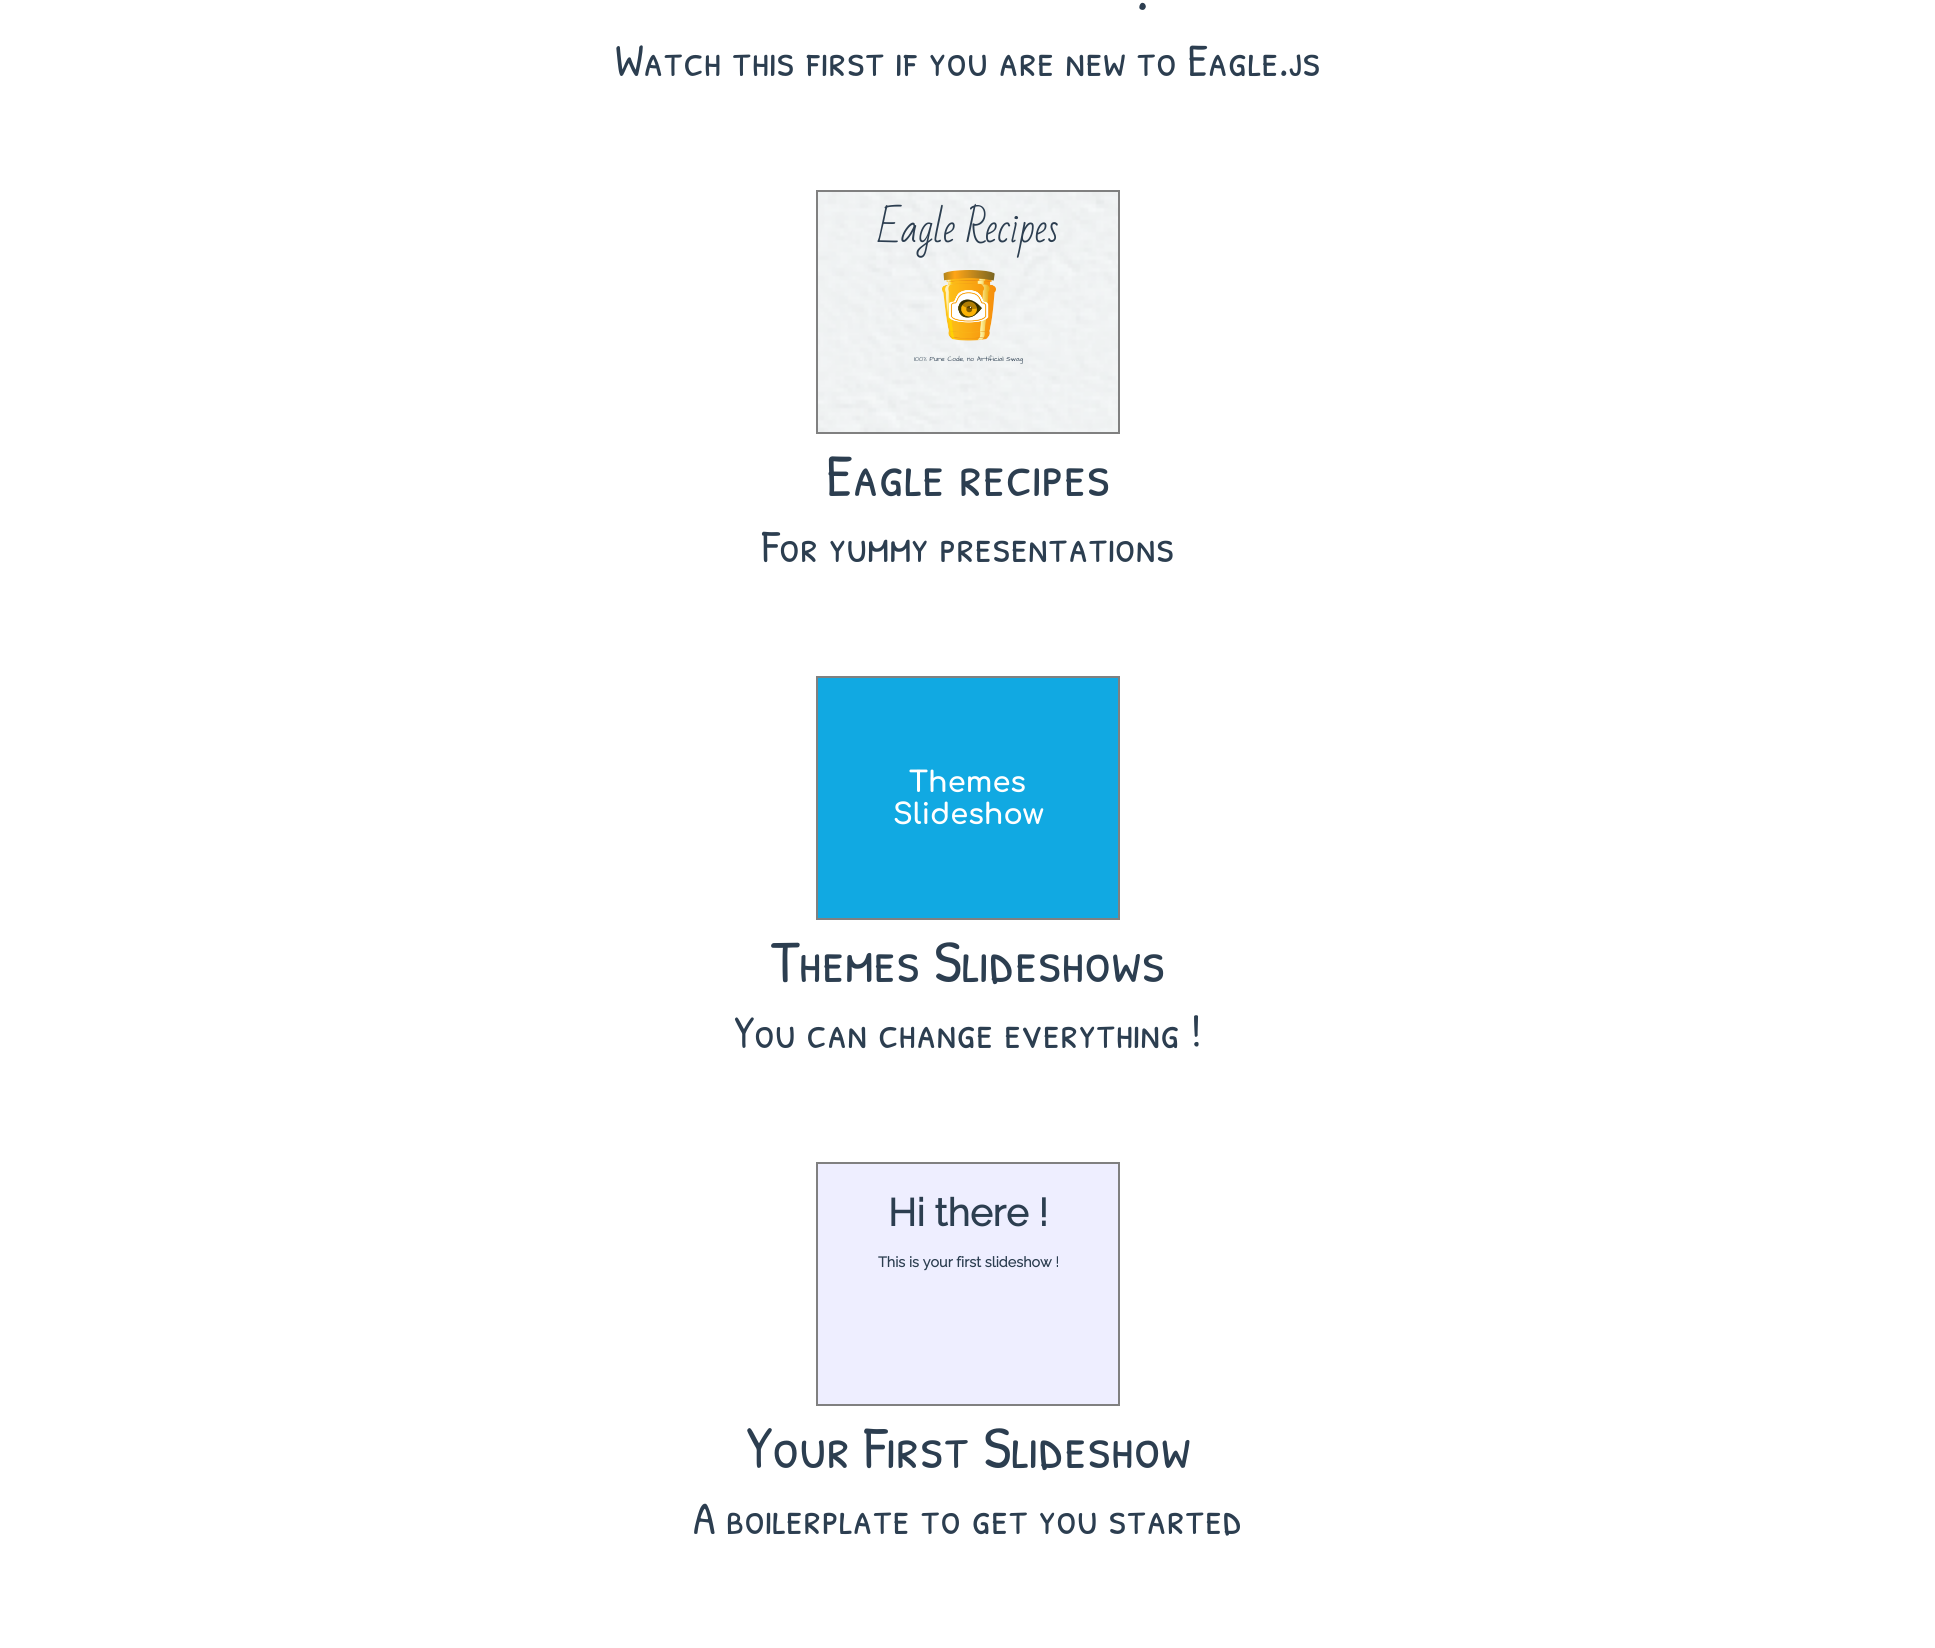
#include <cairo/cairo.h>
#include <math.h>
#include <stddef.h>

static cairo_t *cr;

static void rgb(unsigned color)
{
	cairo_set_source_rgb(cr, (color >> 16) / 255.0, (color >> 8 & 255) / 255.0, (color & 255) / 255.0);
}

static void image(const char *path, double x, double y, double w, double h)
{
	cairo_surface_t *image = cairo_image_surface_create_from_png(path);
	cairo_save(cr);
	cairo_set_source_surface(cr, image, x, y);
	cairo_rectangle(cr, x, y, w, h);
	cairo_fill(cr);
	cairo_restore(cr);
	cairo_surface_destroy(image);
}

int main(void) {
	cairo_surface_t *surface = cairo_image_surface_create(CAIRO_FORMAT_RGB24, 1935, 1648);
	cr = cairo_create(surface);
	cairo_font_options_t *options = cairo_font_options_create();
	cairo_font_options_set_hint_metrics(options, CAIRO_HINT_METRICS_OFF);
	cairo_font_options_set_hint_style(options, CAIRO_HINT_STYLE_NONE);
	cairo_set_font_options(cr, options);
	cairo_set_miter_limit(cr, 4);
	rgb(0xffffff);
	cairo_paint(cr);
	cairo_rectangle(cr, 817, 191, 302, 242);
	rgb(0x808080);
	cairo_stroke(cr);
	image("img/1.png", 818, 192, 300, 240);
	image("img/2.png", 942, 270, 54, 71);
	cairo_rectangle(cr, 817, 677, 302, 242);
	cairo_stroke(cr);
	rgb(0x11a9e2);
	cairo_rectangle(cr, 818, 678, 300, 240);
	cairo_fill(cr);
	cairo_rectangle(cr, 817, 1163, 302, 242);
	rgb(0x808080);
	cairo_stroke(cr);
	rgb(0xeeeeff);
	cairo_rectangle(cr, 818, 1164, 300, 240);
	cairo_fill(cr);
	cairo_select_font_face(cr, "Patrick Hand SC", CAIRO_FONT_SLANT_NORMAL, CAIRO_FONT_WEIGHT_NORMAL);
	cairo_set_font_size(cr, 60);
	rgb(0x2c3e50);
	cairo_move_to(cr, 1136, 10);
	cairo_show_text(cr, ".");
	cairo_set_font_size(cr, 46);
	cairo_move_to(cr, 615, 76);
	cairo_show_text(cr, "Watch this first if you are new to Eagle.js");
	cairo_select_font_face(cr, "Bad Script", CAIRO_FONT_SLANT_NORMAL, CAIRO_FONT_WEIGHT_NORMAL);
	cairo_set_font_size(cr, 38.5);
	cairo_move_to(cr, 878, 242);
	cairo_show_text(cr, "Eagle Recipes");
	cairo_select_font_face(cr, "Architects Daughter", CAIRO_FONT_SLANT_NORMAL, CAIRO_FONT_WEIGHT_NORMAL);
	cairo_set_font_size(cr, 6.75);
	cairo_move_to(cr, 914, 361);
	cairo_show_text(cr, "100% Pure Code, no Artificial Swag");
	cairo_select_font_face(cr, "Patrick Hand SC", CAIRO_FONT_SLANT_NORMAL, CAIRO_FONT_WEIGHT_NORMAL);
	cairo_set_font_size(cr, 60);
	cairo_move_to(cr, 826, 496);
	cairo_show_text(cr, "Eagle recipes");
	cairo_set_font_size(cr, 46);
	cairo_move_to(cr, 762, 562);
	cairo_show_text(cr, "For yummy presentations");
	cairo_select_font_face(cr, "Comfortaa", CAIRO_FONT_SLANT_NORMAL, CAIRO_FONT_WEIGHT_BOLD);
	cairo_set_font_size(cr, 28.75);
	rgb(0xffffff);
	cairo_move_to(cr, 909, 792);
	cairo_show_text(cr, "Themes");
	cairo_move_to(cr, 893, 824);
	cairo_show_text(cr, "Slideshow");
	cairo_select_font_face(cr, "Patrick Hand SC", CAIRO_FONT_SLANT_NORMAL, CAIRO_FONT_WEIGHT_NORMAL);
	cairo_set_font_size(cr, 60);
	rgb(0x2c3e50);
	cairo_move_to(cr, 771, 982);
	cairo_show_text(cr, "Themes Slideshows");
	cairo_set_font_size(cr, 46);
	cairo_move_to(cr, 734, 1048);
	cairo_show_text(cr, "You can change everything !");
	cairo_select_font_face(cr, "Raleway", CAIRO_FONT_SLANT_NORMAL, CAIRO_FONT_WEIGHT_BOLD);
	cairo_set_font_size(cr, 38.5);
	cairo_move_to(cr, 888, 1226);
	cairo_show_text(cr, "Hi there !");
	cairo_set_font_size(cr, 14.4);
	cairo_move_to(cr, 878, 1267);
	cairo_show_text(cr, "This is your first slideshow !");
	cairo_select_font_face(cr, "Patrick Hand SC", CAIRO_FONT_SLANT_NORMAL, CAIRO_FONT_WEIGHT_NORMAL);
	cairo_set_font_size(cr, 60);
	cairo_move_to(cr, 746, 1468);
	cairo_show_text(cr, "Your First Slideshow");
	cairo_set_font_size(cr, 46);
	cairo_move_to(cr, 693, 1534);
	cairo_show_text(cr, "A boilerplate to get you started");
	cairo_surface_write_to_png(surface, "page.png");
	cairo_font_options_destroy(options);
	cairo_destroy(cr);
	cairo_surface_destroy(surface);
	return 0;
}
